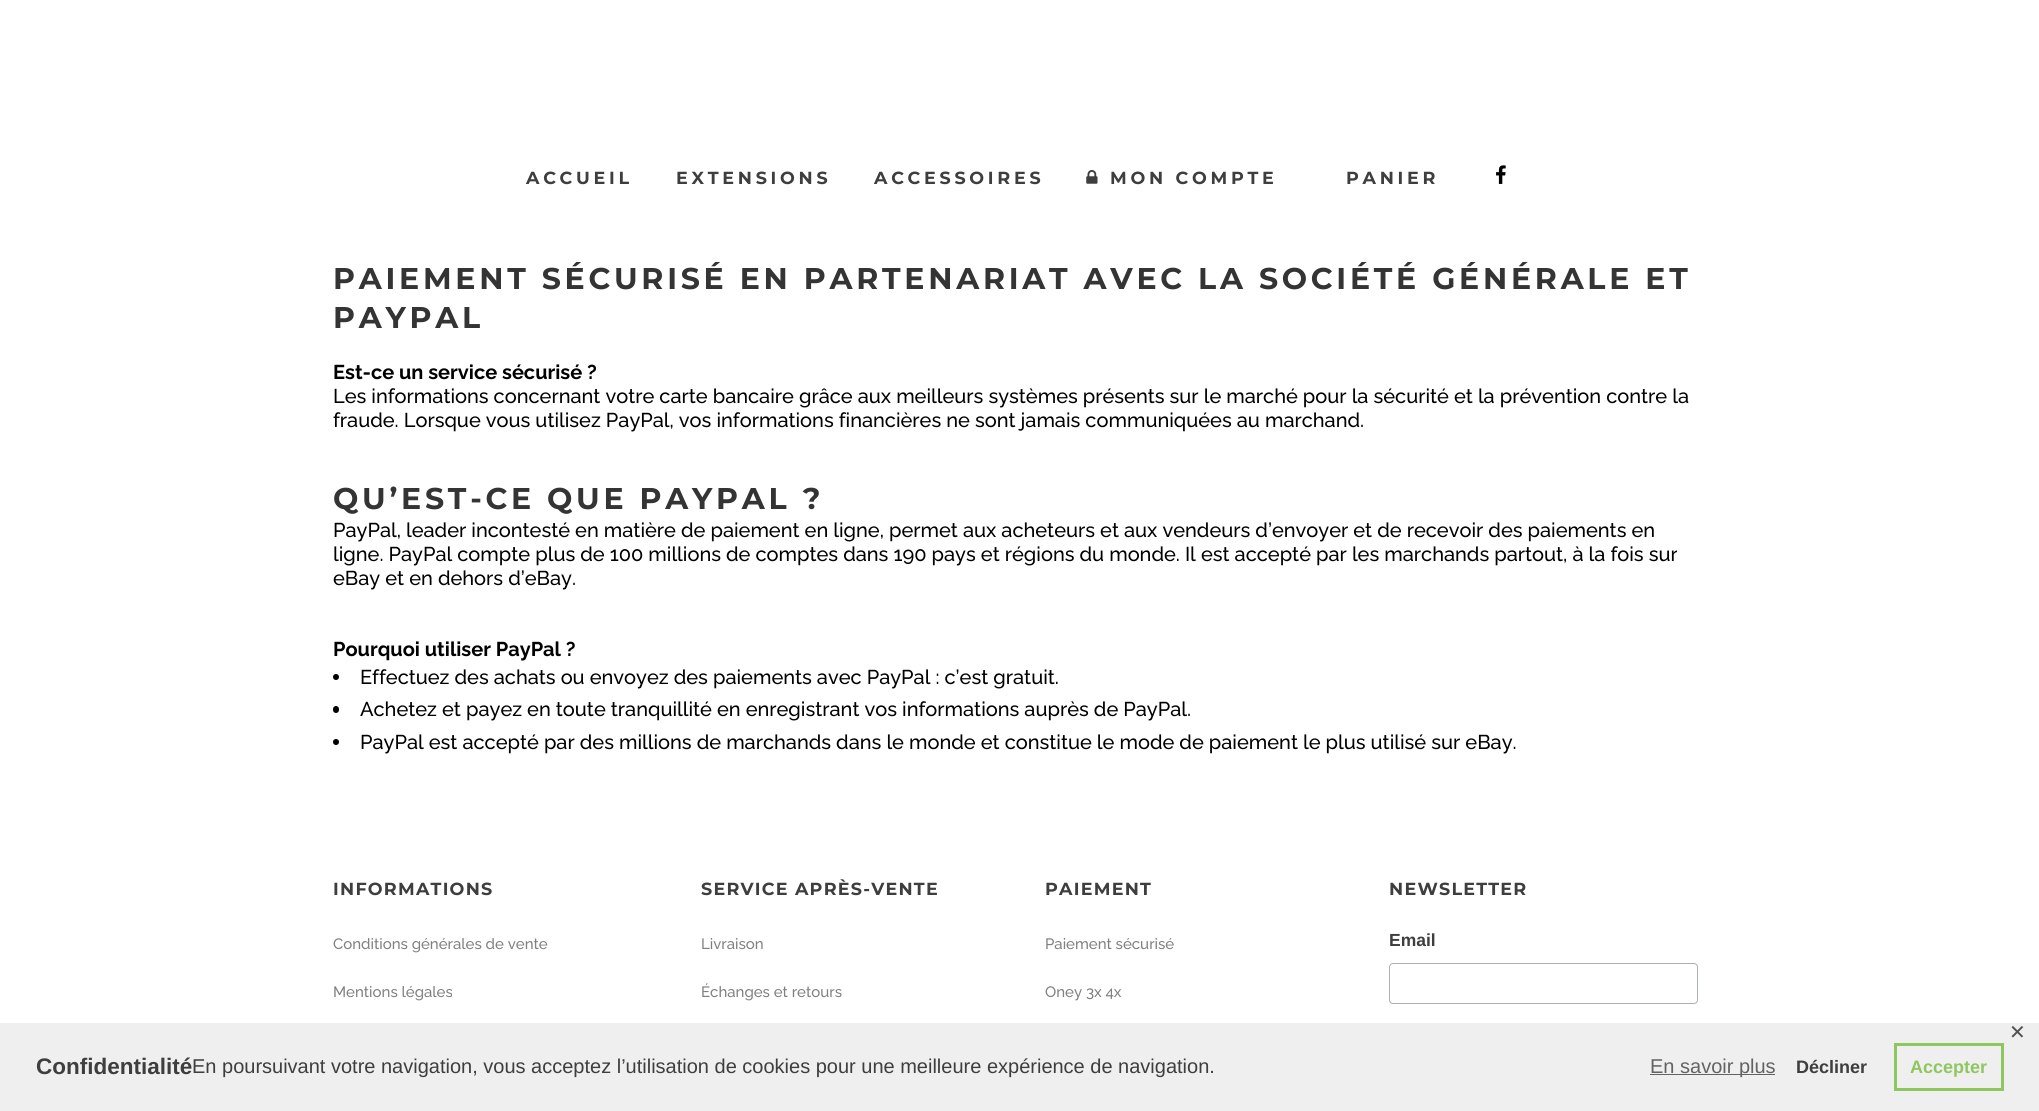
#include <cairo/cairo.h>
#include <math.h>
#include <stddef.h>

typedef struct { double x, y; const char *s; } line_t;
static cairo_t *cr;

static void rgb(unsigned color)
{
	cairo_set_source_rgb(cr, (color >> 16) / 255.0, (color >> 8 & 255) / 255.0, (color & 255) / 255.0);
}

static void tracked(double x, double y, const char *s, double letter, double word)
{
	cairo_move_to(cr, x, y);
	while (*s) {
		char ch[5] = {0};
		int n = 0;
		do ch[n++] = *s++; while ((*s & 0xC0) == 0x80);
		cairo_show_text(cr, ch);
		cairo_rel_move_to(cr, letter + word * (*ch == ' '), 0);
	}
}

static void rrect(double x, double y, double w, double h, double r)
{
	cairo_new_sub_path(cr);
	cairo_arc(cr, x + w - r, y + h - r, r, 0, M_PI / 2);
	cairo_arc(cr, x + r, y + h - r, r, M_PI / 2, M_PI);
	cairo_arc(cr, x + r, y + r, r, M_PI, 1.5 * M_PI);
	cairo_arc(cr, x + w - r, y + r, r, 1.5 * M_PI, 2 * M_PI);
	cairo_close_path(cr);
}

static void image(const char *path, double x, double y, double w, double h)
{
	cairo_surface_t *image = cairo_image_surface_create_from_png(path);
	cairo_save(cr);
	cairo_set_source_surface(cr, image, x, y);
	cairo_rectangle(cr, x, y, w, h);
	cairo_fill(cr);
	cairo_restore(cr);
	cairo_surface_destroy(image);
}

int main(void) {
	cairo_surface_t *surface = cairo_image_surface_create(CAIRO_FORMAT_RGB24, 2039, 1111);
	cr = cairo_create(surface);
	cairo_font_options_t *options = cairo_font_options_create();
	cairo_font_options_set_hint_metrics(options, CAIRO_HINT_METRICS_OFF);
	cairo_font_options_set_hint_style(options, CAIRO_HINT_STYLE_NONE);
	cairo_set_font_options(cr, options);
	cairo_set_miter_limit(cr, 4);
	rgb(0xffffff);
	cairo_paint(cr);
	image("img/1.png", 1086, 170, 12, 14);
	image("img/2.png", 1496, 165, 10, 19);
	rgb(0x000000);
	cairo_arc(cr, 336, 677, 3, 0, 2 * M_PI);
	cairo_fill(cr);
	rrect(333, 706, 6, 7, 3);
	cairo_fill(cr);
	cairo_arc(cr, 336, 742, 3, 0, 2 * M_PI);
	cairo_fill(cr);
	rrect(1389.5, 963.5, 308, 40, 3.5);
	rgb(0xabb0b2);
	cairo_set_line_width(cr, 1);
	cairo_stroke(cr);
	rgb(0xefefef);
	cairo_rectangle(cr, 0, 1023, 2039, 88);
	cairo_fill(cr);
	rgb(0x636363);
	cairo_rectangle(cr, 1650, 1074, 125, 1);
	cairo_fill(cr);
	cairo_rectangle(cr, 1895.5, 1044.5, 107, 45);
	rgb(0x8ec760);
	cairo_set_line_width(cr, 3);
	cairo_stroke(cr);
	cairo_select_font_face(cr, "Montserrat", CAIRO_FONT_SLANT_NORMAL, CAIRO_FONT_WEIGHT_BOLD);
	cairo_set_font_size(cr, 17.5);
	rgb(0x3e3e3e);
	{
		static const line_t items[] = {
			{526, 184, "ACCUEIL"},
			{676, 184, "EXTENSIONS"},
			{874, 184, "ACCESSOIRES"},
			{1110, 184, "MON COMPTE"},
			{1346, 184, "PANIER"},
		};
		for (size_t i = 0; i < sizeof items / sizeof *items; i++) {
			tracked(items[i].x, items[i].y, items[i].s, 3.75, 0);
		}
	}
	cairo_set_font_size(cr, 30);
	rgb(0x343434);
	tracked(333, 289, "PAIEMENT SÉCURISÉ EN PARTENARIAT AVEC LA SOCIÉTÉ GÉNÉRALE ET", 3.75, 0);
	tracked(333, 328, "PAYPAL", 3.75, 0);
	cairo_select_font_face(cr, "Raleway", CAIRO_FONT_SLANT_NORMAL, CAIRO_FONT_WEIGHT_BOLD);
	cairo_set_font_size(cr, 20);
	rgb(0x000000);
	cairo_move_to(cr, 333, 379);
	cairo_show_text(cr, "Est-ce un service sécurisé ?");
	cairo_select_font_face(cr, "Raleway Medium", CAIRO_FONT_SLANT_NORMAL, CAIRO_FONT_WEIGHT_NORMAL);
	cairo_move_to(cr, 333, 403);
	cairo_show_text(cr, "Les informations concernant votre carte bancaire grâce aux meilleurs systèmes présents sur le marché pour la sécurité et la prévention contre la");
	cairo_move_to(cr, 333, 427);
	cairo_show_text(cr, "fraude. Lorsque vous utilisez PayPal, vos informations financières ne sont jamais communiquées au marchand.");
	cairo_select_font_face(cr, "Montserrat", CAIRO_FONT_SLANT_NORMAL, CAIRO_FONT_WEIGHT_BOLD);
	cairo_set_font_size(cr, 30);
	rgb(0x343434);
	tracked(333, 509, "QU’EST-CE QUE PAYPAL ?", 3.75, 0);
	cairo_select_font_face(cr, "Raleway Medium", CAIRO_FONT_SLANT_NORMAL, CAIRO_FONT_WEIGHT_NORMAL);
	cairo_set_font_size(cr, 20);
	rgb(0x000000);
	{
		static const line_t items[] = {
			{333, 537, "PayPal, leader incontesté en matière de paiement en ligne, permet aux acheteurs et aux vendeurs d’envoyer et de recevoir des paiements en"},
			{333, 561, "ligne. PayPal compte plus de 100 millions de comptes dans 190 pays et régions du monde. Il est accepté par les marchands partout, à la fois sur"},
			{333, 585, "eBay et en dehors d’eBay."},
		};
		for (size_t i = 0; i < sizeof items / sizeof *items; i++) {
			cairo_move_to(cr, items[i].x, items[i].y);
			cairo_show_text(cr, items[i].s);
		}
	}
	cairo_select_font_face(cr, "Raleway", CAIRO_FONT_SLANT_NORMAL, CAIRO_FONT_WEIGHT_BOLD);
	cairo_move_to(cr, 333, 656);
	cairo_show_text(cr, "Pourquoi utiliser PayPal ?");
	cairo_select_font_face(cr, "Raleway Medium", CAIRO_FONT_SLANT_NORMAL, CAIRO_FONT_WEIGHT_NORMAL);
	{
		static const line_t items[] = {
			{360, 684, "Effectuez des achats ou envoyez des paiements avec PayPal : c’est gratuit."},
			{360, 716, "Achetez et payez en toute tranquillité en enregistrant vos informations auprès de PayPal."},
			{360, 749, "PayPal est accepté par des millions de marchands dans le monde et constitue le mode de paiement le plus utilisé sur eBay."},
		};
		for (size_t i = 0; i < sizeof items / sizeof *items; i++) {
			cairo_move_to(cr, items[i].x, items[i].y);
			cairo_show_text(cr, items[i].s);
		}
	}
	cairo_select_font_face(cr, "Montserrat", CAIRO_FONT_SLANT_NORMAL, CAIRO_FONT_WEIGHT_BOLD);
	cairo_set_font_size(cr, 17.5);
	rgb(0x3e3e3e);
	tracked(333, 895, "INFORMATIONS", 1.25, 0);
	cairo_select_font_face(cr, "Raleway Medium", CAIRO_FONT_SLANT_NORMAL, CAIRO_FONT_WEIGHT_NORMAL);
	cairo_set_font_size(cr, 15);
	rgb(0x818181);
	cairo_move_to(cr, 333, 949);
	cairo_show_text(cr, "Conditions générales de vente");
	cairo_move_to(cr, 333, 997);
	cairo_show_text(cr, "Mentions légales");
	cairo_select_font_face(cr, "Montserrat", CAIRO_FONT_SLANT_NORMAL, CAIRO_FONT_WEIGHT_BOLD);
	cairo_set_font_size(cr, 17.5);
	rgb(0x3e3e3e);
	tracked(701, 895, "SERVICE APRÈS-VENTE", 1.25, 0);
	cairo_select_font_face(cr, "Raleway Medium", CAIRO_FONT_SLANT_NORMAL, CAIRO_FONT_WEIGHT_NORMAL);
	cairo_set_font_size(cr, 15);
	rgb(0x818181);
	cairo_move_to(cr, 701, 949);
	cairo_show_text(cr, "Livraison");
	cairo_move_to(cr, 701, 997);
	cairo_show_text(cr, "Échanges et retours");
	cairo_select_font_face(cr, "Montserrat", CAIRO_FONT_SLANT_NORMAL, CAIRO_FONT_WEIGHT_BOLD);
	cairo_set_font_size(cr, 17.5);
	rgb(0x3e3e3e);
	tracked(1045, 895, "PAIEMENT", 1.25, 0);
	cairo_select_font_face(cr, "Raleway Medium", CAIRO_FONT_SLANT_NORMAL, CAIRO_FONT_WEIGHT_NORMAL);
	cairo_set_font_size(cr, 15);
	rgb(0x818181);
	cairo_move_to(cr, 1045, 949);
	cairo_show_text(cr, "Paiement sécurisé");
	cairo_move_to(cr, 1045, 997);
	cairo_show_text(cr, "Oney 3x 4x");
	cairo_select_font_face(cr, "Montserrat", CAIRO_FONT_SLANT_NORMAL, CAIRO_FONT_WEIGHT_BOLD);
	cairo_set_font_size(cr, 17.5);
	rgb(0x3e3e3e);
	tracked(1389, 895, "NEWSLETTER", 1.25, 0);
	cairo_select_font_face(cr, "Liberation Sans", CAIRO_FONT_SLANT_NORMAL, CAIRO_FONT_WEIGHT_BOLD);
	cairo_move_to(cr, 1389, 946);
	cairo_show_text(cr, "Email");
	cairo_select_font_face(cr, "DejaVu Sans", CAIRO_FONT_SLANT_NORMAL, CAIRO_FONT_WEIGHT_NORMAL);
	cairo_set_font_size(cr, 20);
	rgb(0x525252);
	cairo_move_to(cr, 2009, 1039);
	cairo_show_text(cr, "✕");
	cairo_select_font_face(cr, "Liberation Sans", CAIRO_FONT_SLANT_NORMAL, CAIRO_FONT_WEIGHT_BOLD);
	cairo_set_font_size(cr, 22.5);
	rgb(0x3e3e3e);
	cairo_move_to(cr, 36, 1074);
	cairo_show_text(cr, "Confidentialité");
	cairo_select_font_face(cr, "Liberation Sans", CAIRO_FONT_SLANT_NORMAL, CAIRO_FONT_WEIGHT_NORMAL);
	cairo_set_font_size(cr, 20);
	cairo_move_to(cr, 192, 1073);
	cairo_show_text(cr, "En poursuivant votre navigation, vous acceptez l’utilisation de cookies pour une meilleure expérience de navigation.");
	rgb(0x636363);
	cairo_move_to(cr, 1650, 1073);
	cairo_show_text(cr, "En savoir plus");
	cairo_select_font_face(cr, "Liberation Sans", CAIRO_FONT_SLANT_NORMAL, CAIRO_FONT_WEIGHT_BOLD);
	cairo_set_font_size(cr, 18);
	rgb(0x3e3e3e);
	cairo_move_to(cr, 1796, 1073);
	cairo_show_text(cr, "Décliner");
	rgb(0x8ec760);
	cairo_move_to(cr, 1910, 1073);
	cairo_show_text(cr, "Accepter");
	cairo_surface_write_to_png(surface, "page.png");
	cairo_font_options_destroy(options);
	cairo_destroy(cr);
	cairo_surface_destroy(surface);
	return 0;
}
